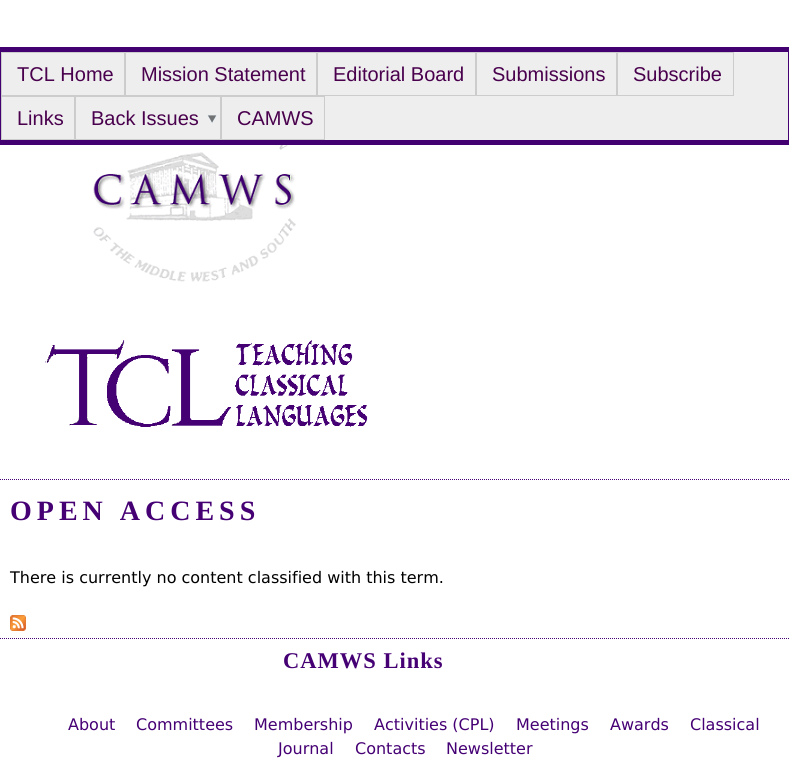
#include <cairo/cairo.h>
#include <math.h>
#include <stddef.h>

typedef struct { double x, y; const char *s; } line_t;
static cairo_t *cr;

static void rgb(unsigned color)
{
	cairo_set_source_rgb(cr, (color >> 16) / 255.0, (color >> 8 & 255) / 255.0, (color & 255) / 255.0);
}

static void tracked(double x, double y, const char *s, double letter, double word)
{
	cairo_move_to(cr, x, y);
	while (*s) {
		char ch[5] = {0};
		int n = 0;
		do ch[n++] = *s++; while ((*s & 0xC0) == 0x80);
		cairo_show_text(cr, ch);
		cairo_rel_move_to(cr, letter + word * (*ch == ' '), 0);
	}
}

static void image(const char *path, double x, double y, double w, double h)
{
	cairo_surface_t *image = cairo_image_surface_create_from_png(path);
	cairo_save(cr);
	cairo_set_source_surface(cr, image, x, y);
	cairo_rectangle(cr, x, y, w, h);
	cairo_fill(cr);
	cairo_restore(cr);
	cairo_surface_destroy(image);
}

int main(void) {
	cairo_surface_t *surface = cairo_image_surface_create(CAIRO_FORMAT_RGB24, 789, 783);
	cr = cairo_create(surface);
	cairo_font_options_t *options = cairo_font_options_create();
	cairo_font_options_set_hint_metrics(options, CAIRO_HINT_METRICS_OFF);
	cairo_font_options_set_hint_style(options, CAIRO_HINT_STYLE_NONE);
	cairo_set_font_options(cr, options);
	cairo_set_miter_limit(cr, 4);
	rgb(0xffffff);
	cairo_paint(cr);
	rgb(0x430070);
	cairo_rectangle(cr, 0, 47, 789, 98);
	cairo_fill(cr);
	rgb(0xeeeeee);
	cairo_rectangle(cr, 2, 52, 786, 88);
	cairo_fill(cr);
	cairo_rectangle(cr, 1.5, 52.5, 123, 43);
	rgb(0xcccccc);
	cairo_set_line_width(cr, 1);
	cairo_stroke(cr);
	cairo_rectangle(cr, 125.5, 52.5, 191, 43);
	cairo_stroke(cr);
	cairo_rectangle(cr, 317.5, 52.5, 158, 43);
	cairo_stroke(cr);
	cairo_rectangle(cr, 476.5, 52.5, 140, 43);
	cairo_stroke(cr);
	cairo_rectangle(cr, 617.5, 52.5, 116, 43);
	cairo_stroke(cr);
	cairo_rectangle(cr, 1.5, 96.5, 73, 43);
	cairo_stroke(cr);
	image("img/1.png", 207, 115, 10, 8);
	cairo_rectangle(cr, 75.5, 96.5, 145, 43);
	cairo_stroke(cr);
	cairo_rectangle(cr, 221.5, 96.5, 103, 43);
	cairo_stroke(cr);
	image("img/2.png", 93, 145, 203, 137);
	image("img/3.png", 45, 340, 323, 87);
	cairo_new_path(cr);
	cairo_move_to(cr, 0, 479.5);
	cairo_line_to(cr, 789, 479.5);
	rgb(0x450074);
	cairo_set_dash(cr, (double[]){1, 1}, 2, 0);
	cairo_stroke(cr);
	image("img/4.png", 10, 615, 16, 16);
	cairo_new_path(cr);
	cairo_move_to(cr, 0, 638.5);
	cairo_line_to(cr, 789, 638.5);
	cairo_stroke(cr);
	cairo_select_font_face(cr, "Liberation Sans", CAIRO_FONT_SLANT_NORMAL, CAIRO_FONT_WEIGHT_NORMAL);
	cairo_set_font_size(cr, 20);
	rgb(0x49004d);
	{
		static const line_t items[] = {
			{17, 81, "TCL Home"},
			{141, 81, "Mission Statement"},
			{333, 81, "Editorial Board"},
			{492, 81, "Submissions"},
			{633, 81, "Subscribe"},
			{17, 125, "Links"},
			{91, 125, "Back Issues"},
			{237, 125, "CAMWS"},
		};
		for (size_t i = 0; i < sizeof items / sizeof *items; i++) {
			cairo_move_to(cr, items[i].x, items[i].y);
			cairo_show_text(cr, items[i].s);
		}
	}
	cairo_select_font_face(cr, "Liberation Serif", CAIRO_FONT_SLANT_NORMAL, CAIRO_FONT_WEIGHT_BOLD);
	cairo_set_font_size(cr, 28);
	rgb(0x450074);
	tracked(10, 520, "OPEN ACCESS", 5, 0);
	cairo_select_font_face(cr, "DejaVu Sans", CAIRO_FONT_SLANT_NORMAL, CAIRO_FONT_WEIGHT_NORMAL);
	cairo_set_font_size(cr, 16);
	rgb(0x000000);
	cairo_move_to(cr, 10, 583);
	cairo_show_text(cr, "There is currently no content classified with this term.");
	cairo_select_font_face(cr, "Liberation Serif", CAIRO_FONT_SLANT_NORMAL, CAIRO_FONT_WEIGHT_BOLD);
	cairo_set_font_size(cr, 22.5);
	rgb(0x450074);
	tracked(283, 668, "CAMWS Links", 1, 0);
	cairo_select_font_face(cr, "DejaVu Sans", CAIRO_FONT_SLANT_NORMAL, CAIRO_FONT_WEIGHT_NORMAL);
	cairo_set_font_size(cr, 16);
	{
		static const line_t items[] = {
			{68, 730, "About"},
			{136, 730, "Committees"},
			{254, 730, "Membership"},
			{374, 730, "Activities (CPL)"},
			{516, 730, "Meetings"},
			{610, 730, "Awards"},
			{690, 730, "Classical"},
			{278, 754, "Journal"},
			{355, 754, "Contacts"},
			{446, 754, "Newsletter"},
		};
		for (size_t i = 0; i < sizeof items / sizeof *items; i++) {
			cairo_move_to(cr, items[i].x, items[i].y);
			cairo_show_text(cr, items[i].s);
		}
	}
	cairo_surface_write_to_png(surface, "page.png");
	cairo_font_options_destroy(options);
	cairo_destroy(cr);
	cairo_surface_destroy(surface);
	return 0;
}
